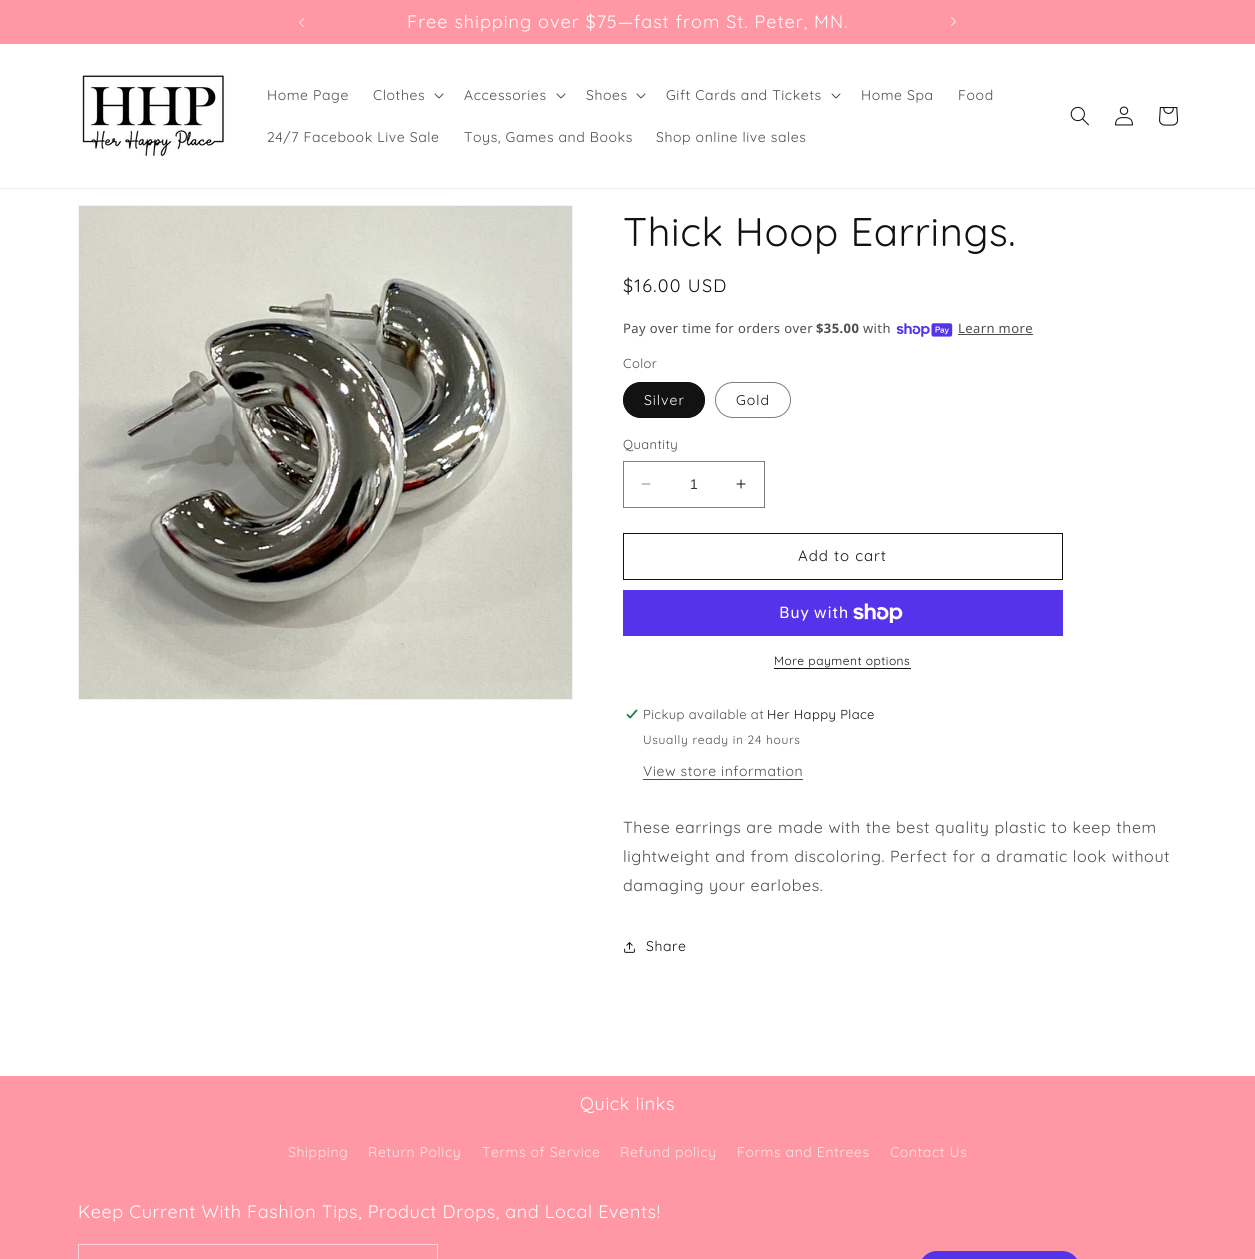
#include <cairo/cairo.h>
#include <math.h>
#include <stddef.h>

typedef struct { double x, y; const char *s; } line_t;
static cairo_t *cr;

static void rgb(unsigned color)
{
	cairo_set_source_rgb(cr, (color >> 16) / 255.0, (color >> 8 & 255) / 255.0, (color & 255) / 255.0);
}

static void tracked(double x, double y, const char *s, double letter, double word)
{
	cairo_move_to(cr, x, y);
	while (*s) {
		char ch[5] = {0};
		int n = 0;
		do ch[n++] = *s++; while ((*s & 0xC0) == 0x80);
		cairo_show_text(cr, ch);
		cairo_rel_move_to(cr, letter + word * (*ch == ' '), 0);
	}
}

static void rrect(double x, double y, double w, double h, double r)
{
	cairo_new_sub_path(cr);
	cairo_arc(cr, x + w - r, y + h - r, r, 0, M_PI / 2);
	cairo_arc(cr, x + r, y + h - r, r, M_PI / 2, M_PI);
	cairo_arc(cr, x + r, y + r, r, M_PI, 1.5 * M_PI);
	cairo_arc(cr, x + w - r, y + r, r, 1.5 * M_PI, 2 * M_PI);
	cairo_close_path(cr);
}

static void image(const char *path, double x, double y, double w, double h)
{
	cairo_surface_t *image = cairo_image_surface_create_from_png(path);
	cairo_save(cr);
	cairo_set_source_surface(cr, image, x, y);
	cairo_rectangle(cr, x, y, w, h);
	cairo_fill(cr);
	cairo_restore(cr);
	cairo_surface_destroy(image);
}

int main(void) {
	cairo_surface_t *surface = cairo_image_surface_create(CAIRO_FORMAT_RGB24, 1255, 1259);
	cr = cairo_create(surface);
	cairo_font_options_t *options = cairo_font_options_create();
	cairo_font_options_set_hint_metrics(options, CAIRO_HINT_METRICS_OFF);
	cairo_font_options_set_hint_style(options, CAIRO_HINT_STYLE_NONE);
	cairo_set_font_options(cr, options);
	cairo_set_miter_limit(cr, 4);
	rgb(0xffffff);
	cairo_paint(cr);
	rgb(0xff98a4);
	cairo_rectangle(cr, 0, 0, 1255, 44);
	cairo_fill(cr);
	image("img/1.png", 299, 18, 5, 9);
	image("img/2.png", 951, 17, 5, 9);
	rgb(0xececec);
	cairo_rectangle(cr, 0, 188, 1255, 1);
	cairo_fill(cr);
	image("img/3.png", 82, 73, 144, 83);
	image("img/4.png", 434, 93, 10, 6);
	image("img/4.png", 556, 93, 10, 6);
	image("img/4.png", 636, 93, 10, 6);
	image("img/4.png", 831, 93, 10, 6);
	image("img/5.png", 1070, 106, 19, 20);
	image("img/6.png", 1115, 106, 18, 20);
	image("img/7.png", 1159, 107, 20, 19);
	cairo_rectangle(cr, 78.5, 205.5, 494, 494);
	rgb(0xf3f3f3);
	cairo_set_line_width(cr, 1);
	cairo_stroke(cr);
	image("img/8.png", 79, 206, 493, 493);
	image("img/9.png", 896, 323, 57, 14);
	rgb(0x4d4d4d);
	cairo_rectangle(cr, 958, 334, 75, 1);
	cairo_fill(cr);
	rgb(0x121212);
	rrect(623, 382, 82, 36, 18);
	cairo_fill(cr);
	rrect(623.5, 382.5, 81, 35, 17.5);
	cairo_set_source_rgba(cr, 0.071, 0.071, 0.071, 0.55);
	cairo_stroke(cr);
	rrect(715.5, 382.5, 75, 35, 17.5);
	rgb(0x7d7d7d);
	cairo_stroke(cr);
	image("img/10.png", 641, 483, 10, 2);
	image("img/11.png", 736, 479, 10, 10);
	cairo_rectangle(cr, 623.5, 461.5, 141, 46);
	cairo_stroke(cr);
	cairo_rectangle(cr, 623.5, 533.5, 439, 46);
	rgb(0x121212);
	cairo_stroke(cr);
	rgb(0x5433eb);
	cairo_rectangle(cr, 623, 590, 440, 46);
	cairo_fill(cr);
	image("img/12.png", 853, 603, 50, 20);
	rgb(0x121212);
	cairo_rectangle(cr, 774, 668, 137, 1);
	cairo_fill(cr);
	image("img/13.png", 626, 709, 12, 10);
	rgb(0x4d4d4d);
	cairo_rectangle(cr, 643, 779, 160, 1);
	cairo_fill(cr);
	image("img/14.png", 624, 942, 11, 11);
	rgb(0xff98a4);
	cairo_rectangle(cr, 0, 1076, 1255, 183);
	cairo_fill(cr);
	cairo_rectangle(cr, 78.5, 1244.5, 359, 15);
	rgb(0xffd1d6);
	cairo_stroke(cr);
	rgb(0x5433eb);
	rrect(919, 1251, 161, 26, 18);
	cairo_fill(cr);
	cairo_select_font_face(cr, "Quicksand", CAIRO_FONT_SLANT_NORMAL, CAIRO_FONT_WEIGHT_NORMAL);
	cairo_set_font_size(cr, 18);
	rgb(0xffffff);
	tracked(407, 28, "Free shipping over $75—fast from St. Peter, MN.", 1, 0);
	cairo_set_font_size(cr, 14);
	rgb(0x4d4d4d);
	{
		static const line_t items[] = {
			{267, 100, "Home Page"},
			{373, 100, "Clothes"},
			{464, 100, "Accessories"},
			{586, 100, "Shoes"},
			{666, 100, "Gift Cards and Tickets"},
			{861, 100, "Home Spa"},
			{958, 100, "Food"},
			{267, 142, "24/7 Facebook Live Sale"},
			{464, 142, "Toys, Games and Books"},
			{656, 142, "Shop online live sales"},
		};
		for (size_t i = 0; i < sizeof items / sizeof *items; i++) {
			tracked(items[i].x, items[i].y, items[i].s, 0.6, 0);
		}
	}
	cairo_set_font_size(cr, 40);
	rgb(0x121212);
	tracked(623, 246, "Thick Hoop Earrings.", 0.6, 0);
	cairo_set_font_size(cr, 18);
	tracked(623, 292, "$16.00 USD", 1.25, 0);
	cairo_select_font_face(cr, "Noto Sans", CAIRO_FONT_SLANT_NORMAL, CAIRO_FONT_WEIGHT_NORMAL);
	cairo_set_font_size(cr, 13);
	rgb(0x4d4d4d);
	tracked(623, 333, "Pay over time for orders over", 0.4, 0);
	cairo_select_font_face(cr, "Noto Sans", CAIRO_FONT_SLANT_NORMAL, CAIRO_FONT_WEIGHT_BOLD);
	tracked(816, 333, "$35.00", 0.4, 0);
	cairo_select_font_face(cr, "Noto Sans", CAIRO_FONT_SLANT_NORMAL, CAIRO_FONT_WEIGHT_NORMAL);
	tracked(863, 333, "with", 0.4, 0);
	tracked(958, 333, "Learn more", 0.4, 0);
	cairo_select_font_face(cr, "Quicksand", CAIRO_FONT_SLANT_NORMAL, CAIRO_FONT_WEIGHT_NORMAL);
	tracked(623, 368, "Color", 0.4, 0);
	cairo_set_font_size(cr, 14);
	rgb(0xffffff);
	tracked(644, 405, "Silver", 1, 0);
	rgb(0x121212);
	tracked(736, 405, "Gold", 1, 0);
	cairo_set_font_size(cr, 13);
	rgb(0x4d4d4d);
	tracked(623, 449, "Quantity", 0.4, 0);
	cairo_select_font_face(cr, "Liberation Sans", CAIRO_FONT_SLANT_NORMAL, CAIRO_FONT_WEIGHT_NORMAL);
	cairo_set_font_size(cr, 14);
	rgb(0x363636);
	cairo_move_to(cr, 690, 489);
	cairo_show_text(cr, "1");
	cairo_select_font_face(cr, "Quicksand", CAIRO_FONT_SLANT_NORMAL, CAIRO_FONT_WEIGHT_NORMAL);
	cairo_set_font_size(cr, 15);
	rgb(0x121212);
	tracked(798, 561, "Add to cart", 1, 0);
	cairo_select_font_face(cr, "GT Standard", CAIRO_FONT_SLANT_NORMAL, CAIRO_FONT_WEIGHT_NORMAL);
	cairo_set_font_size(cr, 16);
	rgb(0xffffff);
	tracked(779, 618, "Buy with", 0.6, 0);
	cairo_select_font_face(cr, "Quicksand", CAIRO_FONT_SLANT_NORMAL, CAIRO_FONT_WEIGHT_NORMAL);
	cairo_set_font_size(cr, 12);
	rgb(0x121212);
	tracked(774, 665, "More payment options", 0.5, 0);
	cairo_set_font_size(cr, 13);
	rgb(0x4d4d4d);
	tracked(643, 719, "Pickup available at", 0.4, 0);
	rgb(0x121212);
	tracked(767, 719, "Her Happy Place", 0.4, 0);
	cairo_set_font_size(cr, 12);
	rgb(0x4d4d4d);
	tracked(643, 744, "Usually ready in 24 hours", 0.7, 0);
	cairo_set_font_size(cr, 14);
	tracked(643, 776, "View store information", 0.6, 0);
	cairo_set_font_size(cr, 16);
	{
		static const line_t items[] = {
			{623, 833, "These earrings are made with the best quality plastic to keep them"},
			{623, 862, "lightweight and from discoloring. Perfect for a dramatic look without"},
			{623, 891, "damaging your earlobes."},
		};
		for (size_t i = 0; i < sizeof items / sizeof *items; i++) {
			tracked(items[i].x, items[i].y, items[i].s, 0.6, 0);
		}
	}
	cairo_set_font_size(cr, 14);
	rgb(0x121212);
	tracked(646, 951, "Share", 0.6, 0);
	cairo_set_font_size(cr, 18);
	rgb(0xffffff);
	tracked(580, 1110, "Quick links", 0.6, 0);
	cairo_set_font_size(cr, 14);
	rgb(0xffe5e8);
	{
		static const line_t items[] = {
			{288, 1157, "Shipping"},
			{368, 1157, "Return Policy"},
			{482, 1157, "Terms of Service"},
			{620, 1157, "Refund policy"},
			{737, 1157, "Forms and Entrees"},
			{890, 1157, "Contact Us"},
		};
		for (size_t i = 0; i < sizeof items / sizeof *items; i++) {
			tracked(items[i].x, items[i].y, items[i].s, 0.6, 0);
		}
	}
	cairo_set_font_size(cr, 18);
	rgb(0xffffff);
	tracked(78, 1218, "Keep Current With Fashion Tips, Product Drops, and Local Events!", 0.6, 0);
	cairo_surface_write_to_png(surface, "page.png");
	cairo_font_options_destroy(options);
	cairo_destroy(cr);
	cairo_surface_destroy(surface);
	return 0;
}
